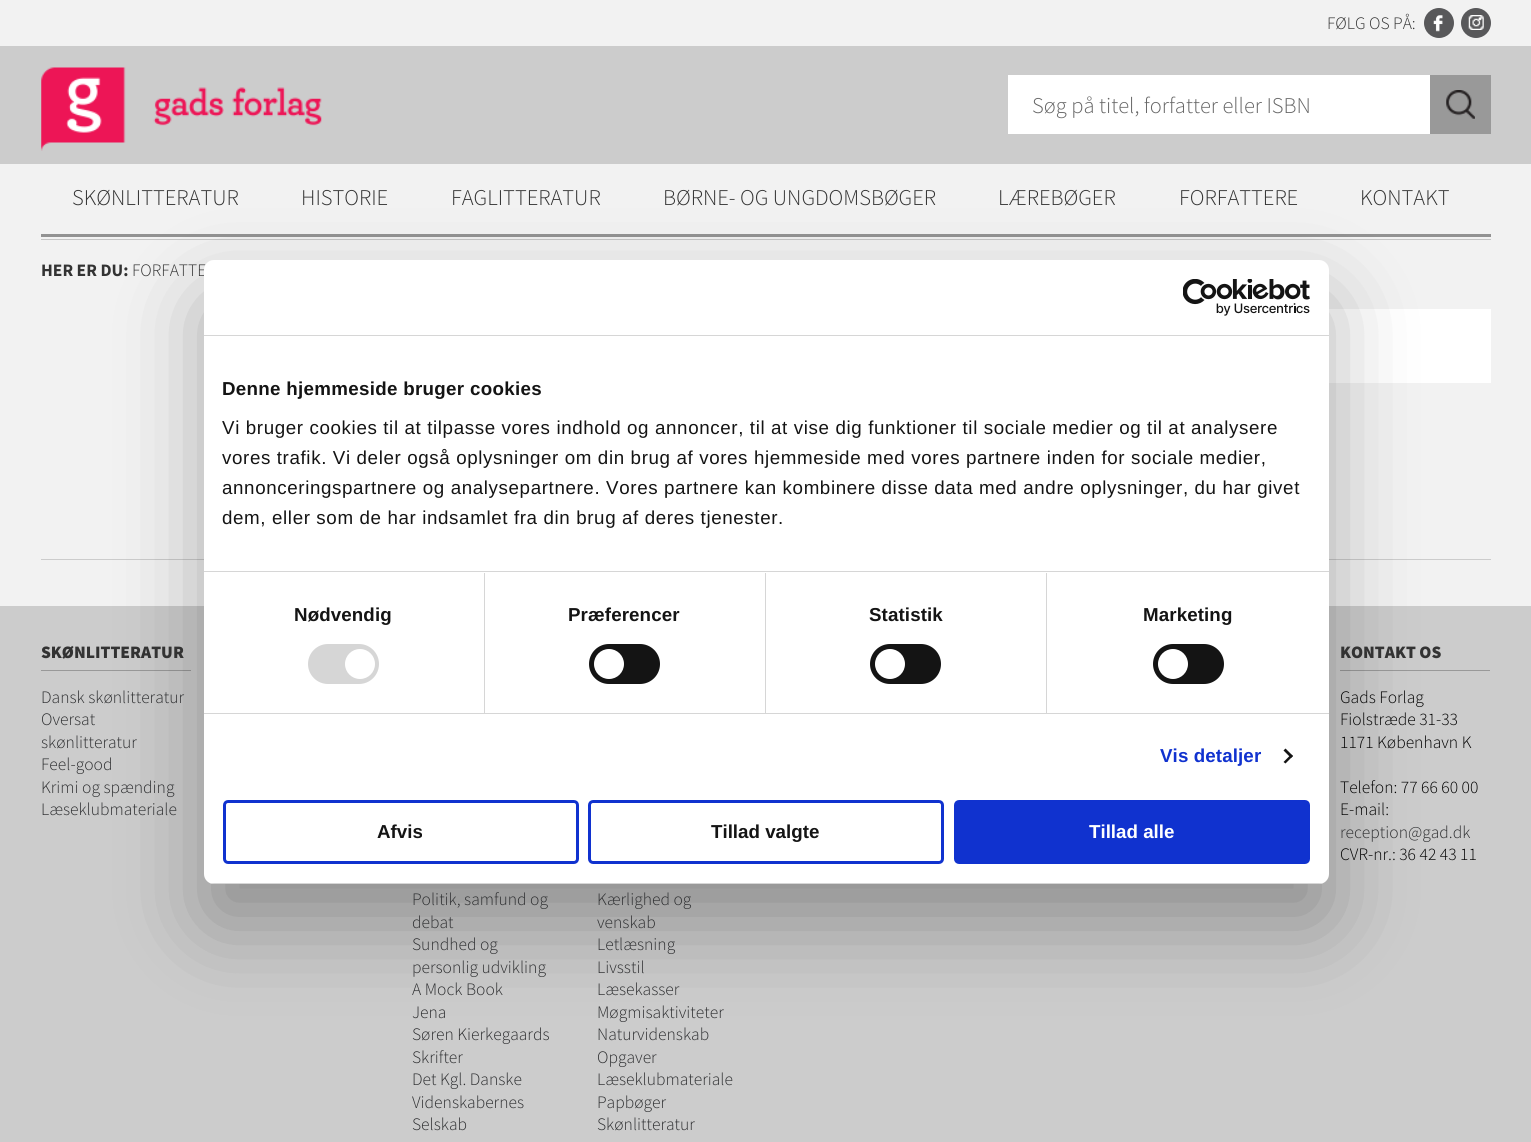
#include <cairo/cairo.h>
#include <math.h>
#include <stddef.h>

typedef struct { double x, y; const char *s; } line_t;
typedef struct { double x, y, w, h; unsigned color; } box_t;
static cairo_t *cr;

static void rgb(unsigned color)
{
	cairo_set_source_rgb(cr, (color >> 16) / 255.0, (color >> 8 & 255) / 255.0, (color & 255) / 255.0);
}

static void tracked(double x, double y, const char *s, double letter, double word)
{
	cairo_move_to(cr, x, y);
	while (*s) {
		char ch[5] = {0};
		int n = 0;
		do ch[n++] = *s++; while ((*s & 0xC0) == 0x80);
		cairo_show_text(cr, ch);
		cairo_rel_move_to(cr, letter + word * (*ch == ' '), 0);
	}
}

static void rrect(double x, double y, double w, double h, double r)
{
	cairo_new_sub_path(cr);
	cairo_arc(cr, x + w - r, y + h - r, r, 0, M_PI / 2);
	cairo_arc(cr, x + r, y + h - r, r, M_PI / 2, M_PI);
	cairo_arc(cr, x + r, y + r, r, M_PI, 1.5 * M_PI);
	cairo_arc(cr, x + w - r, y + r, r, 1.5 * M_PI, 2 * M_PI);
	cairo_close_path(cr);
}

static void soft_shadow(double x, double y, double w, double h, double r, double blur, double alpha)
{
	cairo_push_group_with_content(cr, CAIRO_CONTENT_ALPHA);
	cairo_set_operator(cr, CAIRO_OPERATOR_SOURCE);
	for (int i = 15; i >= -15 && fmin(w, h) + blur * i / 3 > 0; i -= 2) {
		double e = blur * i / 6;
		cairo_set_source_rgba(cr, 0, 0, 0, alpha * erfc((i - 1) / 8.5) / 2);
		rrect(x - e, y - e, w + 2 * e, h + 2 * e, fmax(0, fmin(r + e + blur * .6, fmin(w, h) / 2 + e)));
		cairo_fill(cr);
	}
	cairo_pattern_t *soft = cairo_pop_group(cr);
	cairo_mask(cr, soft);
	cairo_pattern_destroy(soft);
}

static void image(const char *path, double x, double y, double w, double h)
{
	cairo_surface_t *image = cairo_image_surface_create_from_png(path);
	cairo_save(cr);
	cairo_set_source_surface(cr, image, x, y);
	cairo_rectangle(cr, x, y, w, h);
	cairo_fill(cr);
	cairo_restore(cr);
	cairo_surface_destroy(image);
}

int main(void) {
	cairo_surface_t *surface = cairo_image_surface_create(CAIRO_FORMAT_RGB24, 1531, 1142);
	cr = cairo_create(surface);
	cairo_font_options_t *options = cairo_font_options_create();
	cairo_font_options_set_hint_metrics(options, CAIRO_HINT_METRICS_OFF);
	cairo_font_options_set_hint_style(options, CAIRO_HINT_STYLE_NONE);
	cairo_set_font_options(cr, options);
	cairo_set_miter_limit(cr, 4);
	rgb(0xf2f2f2);
	cairo_paint(cr);
	rgb(0xcccccc);
	cairo_rectangle(cr, 0, 46, 1531, 118);
	cairo_fill(cr);
	rgb(0x58585a);
	cairo_arc(cr, 1439, 23, 15, 0, 2 * M_PI);
	cairo_fill(cr);
	image("img/1.png", 1433, 15, 10, 17);
	cairo_arc(cr, 1476, 23, 15, 0, 2 * M_PI);
	cairo_fill(cr);
	image("img/2.png", 1468, 15, 16, 15);
	image("img/3.png", 41, 67, 281, 84);
	rgb(0xffffff);
	cairo_rectangle(cr, 1008, 75, 422, 59);
	cairo_fill(cr);
	rgb(0x999999);
	cairo_rectangle(cr, 1430, 75, 61, 59);
	cairo_fill(cr);
	image("img/4.png", 1446, 90, 29, 29);
	{
		static const box_t items[] = {
			{41, 234, 1450, 3, 0x929292},
			{41, 239, 1450, 1, 0xc5c5c5},
			{1329, 309, 162, 74, 0xffffff},
			{41, 559, 1450, 1, 0xcccccc},
			{0, 606, 1531, 536, 0xcccccc},
			{41, 670, 150, 1, 0x999999},
			{1340, 670, 150, 1, 0x999999},
		};
		for (size_t i = 0; i < sizeof items / sizeof *items; i++) {
			rgb(items[i].color);
			cairo_rectangle(cr, items[i].x, items[i].y, items[i].w, items[i].h);
			cairo_fill(cr);
		}
	}
	rgb(0x000000);
	soft_shadow(204, 300, 1125, 624, 10, 42.5, 0.3);
	cairo_select_font_face(cr, "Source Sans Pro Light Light", CAIRO_FONT_SLANT_NORMAL, CAIRO_FONT_WEIGHT_NORMAL);
	cairo_set_font_size(cr, 17.5);
	rgb(0x333333);
	cairo_move_to(cr, 1327, 29);
	cairo_show_text(cr, "FØLG OS PÅ:");
	cairo_set_font_size(cr, 22.5);
	rgb(0x666666);
	cairo_move_to(cr, 1032, 113);
	cairo_show_text(cr, "Søg på titel, forfatter eller ISBN");
	rgb(0x333333);
	{
		static const line_t items[] = {
			{72, 205, "SKØNLITTERATUR"},
			{301, 205, "HISTORIE"},
			{451, 205, "FAGLITTERATUR"},
			{663, 205, "BØRNE- OG UNGDOMSBØGER"},
			{998, 205, "LÆREBØGER"},
			{1179, 205, "FORFATTERE"},
			{1360, 205, "KONTAKT"},
		};
		for (size_t i = 0; i < sizeof items / sizeof *items; i++) {
			cairo_move_to(cr, items[i].x, items[i].y);
			cairo_show_text(cr, items[i].s);
		}
	}
	cairo_select_font_face(cr, "Source Sans Pro", CAIRO_FONT_SLANT_NORMAL, CAIRO_FONT_WEIGHT_BOLD);
	cairo_set_font_size(cr, 17.5);
	cairo_move_to(cr, 41, 276);
	cairo_show_text(cr, "HER ER DU:");
	cairo_select_font_face(cr, "Source Sans Pro Light Light", CAIRO_FONT_SLANT_NORMAL, CAIRO_FONT_WEIGHT_NORMAL);
	cairo_move_to(cr, 132, 276);
	cairo_show_text(cr, "FORFATTE");
	rgb(0xffffff);
	rrect(204, 260, 1125, 624, 10);
	cairo_fill(cr);
	rgb(0xd6d6d6);
	cairo_rectangle(cr, 204, 335, 1125, 1);
	cairo_fill(cr);
	image("img/5.png", 1183, 279, 127, 37);
	cairo_rectangle(cr, 204, 571, 1125, 1);
	cairo_fill(cr);
	cairo_select_font_face(cr, "Liberation Sans", CAIRO_FONT_SLANT_NORMAL, CAIRO_FONT_WEIGHT_BOLD);
	cairo_set_font_size(cr, 18.75);
	rgb(0x141414);
	tracked(222, 395, "Denne hjemmeside bruger cookies", 0.3, 0);
	cairo_select_font_face(cr, "Liberation Sans", CAIRO_FONT_SLANT_NORMAL, CAIRO_FONT_WEIGHT_NORMAL);
	{
		static const line_t items[] = {
			{222, 434, "Vi bruger cookies til at tilpasse vores indhold og annoncer, til at vise dig funktioner til sociale medier og til at analysere"},
			{222, 464, "vores trafik. Vi deler også oplysninger om din brug af vores hjemmeside med vores partnere inden for sociale medier,"},
			{222, 494, "annonceringspartnere og analysepartnere. Vores partnere kan kombinere disse data med andre oplysninger, du har givet"},
			{222, 524, "dem, eller som de har indsamlet fra din brug af deres tjenester."},
		};
		for (size_t i = 0; i < sizeof items / sizeof *items; i++) {
			tracked(items[i].x, items[i].y, items[i].s, 0.62, 0);
		}
	}
	rgb(0xd6d6d6);
	cairo_rectangle(cr, 204, 713, 1125, 1);
	cairo_fill(cr);
	cairo_rectangle(cr, 484, 573, 1, 140);
	cairo_fill(cr);
	cairo_select_font_face(cr, "Liberation Sans", CAIRO_FONT_SLANT_NORMAL, CAIRO_FONT_WEIGHT_BOLD);
	rgb(0x141414);
	tracked(294, 621, "Nødvendig", 0.1, 0);
	rgb(0xd6d6d6);
	rrect(308, 644, 71, 40, 20);
	cairo_fill(cr);
	rgb(0xffffff);
	cairo_arc(cr, 360, 664, 15, 0, 2 * M_PI);
	cairo_fill(cr);
	rgb(0xd6d6d6);
	cairo_rectangle(cr, 765, 573, 1, 140);
	cairo_fill(cr);
	rgb(0x141414);
	tracked(568, 621, "Præferencer", 0.1, 0);
	rrect(589, 644, 71, 40, 20);
	cairo_fill(cr);
	rgb(0xffffff);
	cairo_arc(cr, 609, 664, 15, 0, 2 * M_PI);
	cairo_fill(cr);
	rgb(0xd6d6d6);
	cairo_rectangle(cr, 1046, 573, 1, 140);
	cairo_fill(cr);
	rgb(0x141414);
	tracked(869, 621, "Statistik", 0.1, 0);
	rrect(870, 644, 71, 40, 20);
	cairo_fill(cr);
	rgb(0xffffff);
	cairo_arc(cr, 890, 664, 15, 0, 2 * M_PI);
	cairo_fill(cr);
	rgb(0x141414);
	tracked(1143, 621, "Marketing", 0.1, 0);
	rrect(1153, 644, 71, 40, 20);
	cairo_fill(cr);
	rgb(0xffffff);
	cairo_arc(cr, 1173, 664, 15, 0, 2 * M_PI);
	cairo_fill(cr);
	rgb(0x1032cf);
	tracked(1160, 762, "Vis detaljer", 0.1, 0);
	rgb(0x141414);
	cairo_new_path(cr);
	cairo_move_to(cr, 1285.5, 748.5);
	cairo_line_to(cr, 1293, 756);
	cairo_line_to(cr, 1291, 758);
	cairo_line_to(cr, 1283.5, 750.5);
	cairo_close_path(cr);
	cairo_fill(cr);
	cairo_new_path(cr);
	cairo_move_to(cr, 1291, 754.5);
	cairo_line_to(cr, 1293, 756);
	cairo_line_to(cr, 1285.5, 763.5);
	cairo_line_to(cr, 1283.5, 762);
	cairo_close_path(cr);
	cairo_fill(cr);
	cairo_save(cr);
	rrect(204, 260, 1125, 624, 10);
	cairo_clip(cr);
	rgb(0xd6d6d6);
	cairo_rectangle(cr, 204, 883, 1125, 1);
	cairo_fill(cr);
	cairo_restore(cr);
	rrect(224.5, 801.5, 353, 61, 3.5);
	rgb(0x1032cf);
	cairo_set_line_width(cr, 3);
	cairo_stroke(cr);
	rgb(0x141414);
	cairo_move_to(cr, 377, 838);
	cairo_show_text(cr, "Afvis");
	rrect(589.5, 801.5, 353, 61, 3.5);
	rgb(0x1032cf);
	cairo_stroke(cr);
	rgb(0x141414);
	cairo_move_to(cr, 711, 838);
	cairo_show_text(cr, "Tillad valgte");
	rgb(0x1032cf);
	rrect(955.5, 801.5, 353, 61, 3.5);
	cairo_fill_preserve(cr);
	cairo_stroke(cr);
	rgb(0xffffff);
	cairo_move_to(cr, 1089, 838);
	cairo_show_text(cr, "Tillad alle");
	cairo_select_font_face(cr, "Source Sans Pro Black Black", CAIRO_FONT_SLANT_NORMAL, CAIRO_FONT_WEIGHT_NORMAL);
	cairo_set_font_size(cr, 17.5);
	rgb(0x333333);
	cairo_move_to(cr, 41, 658);
	cairo_show_text(cr, "SKØNLITTERATUR");
	cairo_select_font_face(cr, "Source Sans Pro Light Light", CAIRO_FONT_SLANT_NORMAL, CAIRO_FONT_WEIGHT_NORMAL);
	rgb(0x2d2e30);
	{
		static const line_t items[] = {
			{41, 703, "Dansk skønlitteratur"},
			{41, 725, "Oversat"},
			{41, 748, "skønlitteratur"},
			{41, 770, "Feel-good"},
			{41, 793, "Krimi og spænding"},
			{41, 815, "Læseklubmateriale"},
		};
		for (size_t i = 0; i < sizeof items / sizeof *items; i++) {
			cairo_move_to(cr, items[i].x, items[i].y);
			cairo_show_text(cr, items[i].s);
		}
	}
	cairo_select_font_face(cr, "Source Sans Pro Black Black", CAIRO_FONT_SLANT_NORMAL, CAIRO_FONT_WEIGHT_NORMAL);
	rgb(0x333333);
	cairo_move_to(cr, 1340, 658);
	cairo_show_text(cr, "KONTAKT OS");
	cairo_select_font_face(cr, "Source Sans Pro Light Light", CAIRO_FONT_SLANT_NORMAL, CAIRO_FONT_WEIGHT_NORMAL);
	rgb(0x000000);
	{
		static const line_t items[] = {
			{1340, 703, "Gads Forlag"},
			{1340, 725, "Fiolstræde 31-33"},
			{1340, 748, "1171 København K"},
			{1340, 793, "Telefon: 77 66 60 00"},
			{1340, 815, "E-mail:"},
		};
		for (size_t i = 0; i < sizeof items / sizeof *items; i++) {
			cairo_move_to(cr, items[i].x, items[i].y);
			cairo_show_text(cr, items[i].s);
		}
	}
	rgb(0x2d2e30);
	cairo_move_to(cr, 1340, 838);
	cairo_show_text(cr, "reception@gad.dk");
	rgb(0x000000);
	cairo_move_to(cr, 1340, 860);
	cairo_show_text(cr, "CVR-nr.: 36 42 43 11");
	rgb(0x2d2e30);
	{
		static const line_t items[] = {
			{412, 905, "Politik, samfund og"},
			{412, 928, "debat"},
			{412, 950, "Sundhed og"},
			{412, 973, "personlig udvikling"},
			{412, 995, "A Mock Book"},
			{412, 1018, "Jena"},
			{412, 1040, "Søren Kierkegaards"},
			{412, 1063, "Skrifter"},
			{412, 1085, "Det Kgl. Danske"},
			{412, 1108, "Videnskabernes"},
			{412, 1130, "Selskab"},
			{597, 905, "Kærlighed og"},
			{597, 928, "venskab"},
			{597, 950, "Letlæsning"},
			{597, 973, "Livsstil"},
			{597, 995, "Læsekasser"},
			{597, 1018, "Møgmisaktiviteter"},
			{597, 1040, "Naturvidenskab"},
			{597, 1063, "Opgaver"},
			{597, 1085, "Læseklubmateriale"},
			{597, 1108, "Papbøger"},
			{597, 1130, "Skønlitteratur"},
		};
		for (size_t i = 0; i < sizeof items / sizeof *items; i++) {
			cairo_move_to(cr, items[i].x, items[i].y);
			cairo_show_text(cr, items[i].s);
		}
	}
	cairo_surface_write_to_png(surface, "page.png");
	cairo_font_options_destroy(options);
	cairo_destroy(cr);
	cairo_surface_destroy(surface);
	return 0;
}
